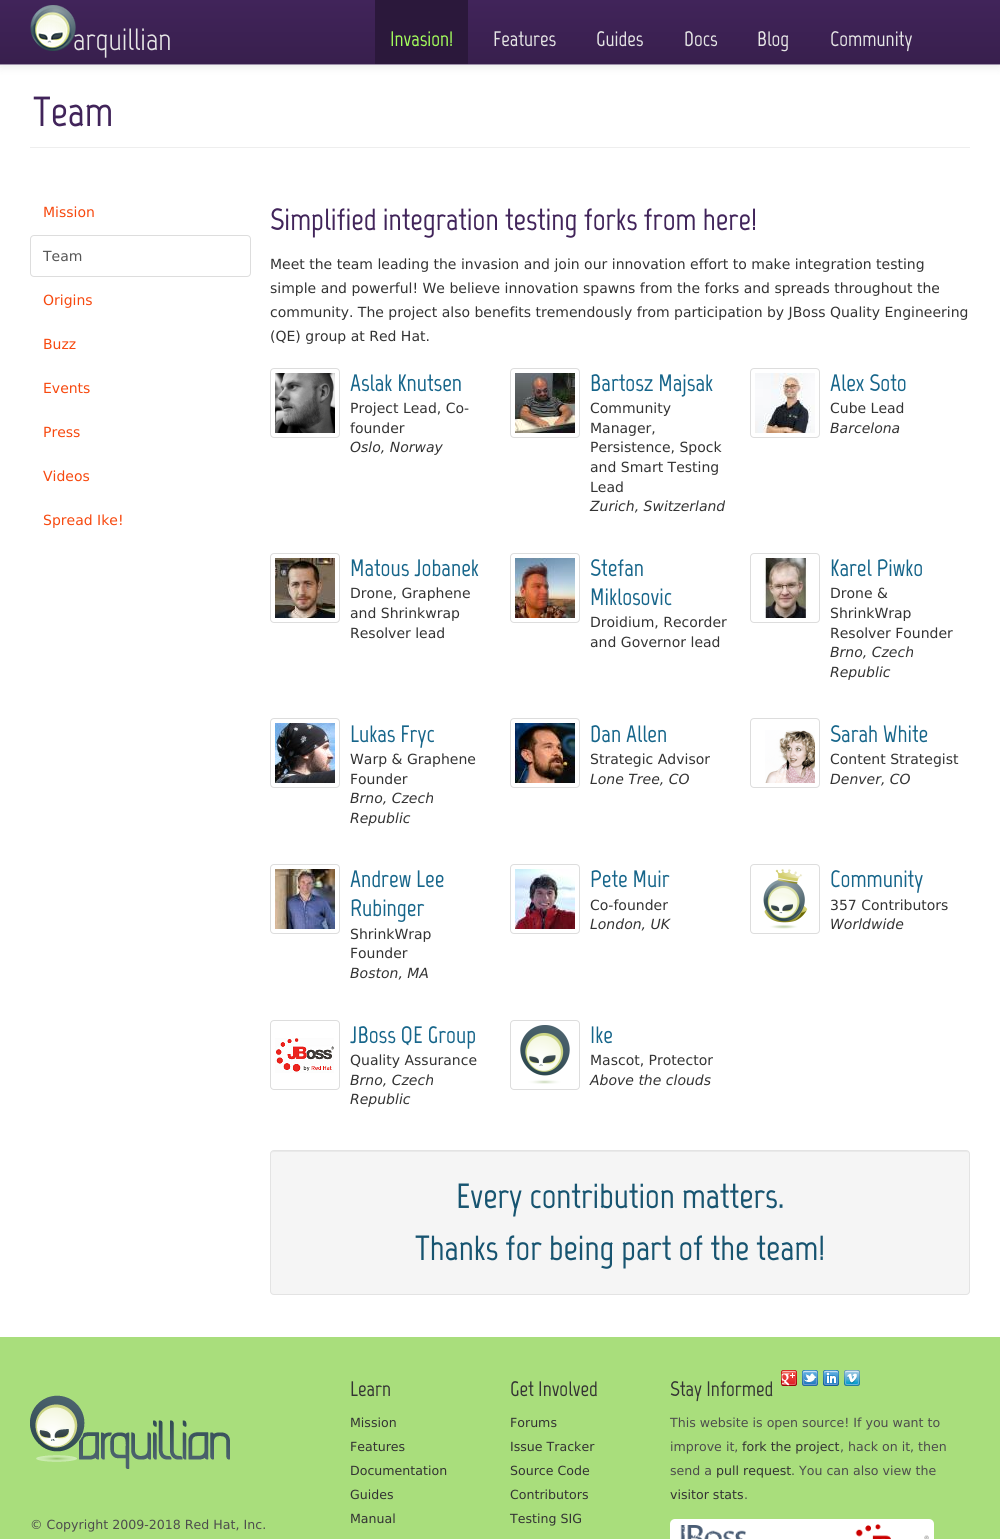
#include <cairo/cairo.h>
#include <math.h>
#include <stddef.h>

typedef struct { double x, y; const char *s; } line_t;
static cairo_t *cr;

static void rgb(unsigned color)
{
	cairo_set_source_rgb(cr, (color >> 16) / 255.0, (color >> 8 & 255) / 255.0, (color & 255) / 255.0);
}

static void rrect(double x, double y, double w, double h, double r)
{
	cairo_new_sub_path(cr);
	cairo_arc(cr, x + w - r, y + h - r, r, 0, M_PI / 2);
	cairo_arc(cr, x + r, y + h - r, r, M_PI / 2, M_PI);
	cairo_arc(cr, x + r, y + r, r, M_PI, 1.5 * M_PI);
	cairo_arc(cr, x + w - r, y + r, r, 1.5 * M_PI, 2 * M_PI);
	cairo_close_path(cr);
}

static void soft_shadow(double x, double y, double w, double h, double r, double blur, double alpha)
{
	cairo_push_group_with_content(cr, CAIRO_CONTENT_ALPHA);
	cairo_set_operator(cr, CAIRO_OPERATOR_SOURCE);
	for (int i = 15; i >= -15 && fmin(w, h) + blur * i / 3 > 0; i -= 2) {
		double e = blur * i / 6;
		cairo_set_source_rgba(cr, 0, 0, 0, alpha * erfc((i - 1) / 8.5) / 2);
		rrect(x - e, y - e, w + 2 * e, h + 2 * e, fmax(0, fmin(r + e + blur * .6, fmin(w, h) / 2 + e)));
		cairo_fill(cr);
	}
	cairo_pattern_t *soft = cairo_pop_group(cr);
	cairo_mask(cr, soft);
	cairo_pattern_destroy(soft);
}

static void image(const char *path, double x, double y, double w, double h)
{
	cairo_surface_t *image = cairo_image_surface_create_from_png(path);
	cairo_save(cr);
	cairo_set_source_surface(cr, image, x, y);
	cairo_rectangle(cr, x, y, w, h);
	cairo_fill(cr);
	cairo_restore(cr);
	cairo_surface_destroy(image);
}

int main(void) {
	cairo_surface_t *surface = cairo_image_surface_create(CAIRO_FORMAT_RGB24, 1000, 1539);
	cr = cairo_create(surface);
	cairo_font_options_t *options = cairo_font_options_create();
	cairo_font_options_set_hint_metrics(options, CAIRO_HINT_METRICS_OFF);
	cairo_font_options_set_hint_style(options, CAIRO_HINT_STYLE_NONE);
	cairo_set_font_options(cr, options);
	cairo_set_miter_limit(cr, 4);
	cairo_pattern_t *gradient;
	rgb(0xffffff);
	cairo_paint(cr);
	rgb(0x000000);
	soft_shadow(0, 1, 1000, 65, 0, 5, 0.1);
	gradient = cairo_pattern_create_linear(500, 0, 500, 64);
	cairo_pattern_add_color_stop_rgba(gradient, 0, 0.255, 0.141, 0.353, 1);
	cairo_pattern_add_color_stop_rgba(gradient, 1, 0.22, 0.122, 0.302, 1);
	cairo_set_source(cr, gradient);
	cairo_pattern_destroy(gradient);
	cairo_rectangle(cr, 0, 0, 1000, 64);
	cairo_fill(cr);
	rgb(0x9e91aa);
	cairo_rectangle(cr, 0, 64, 1000, 1);
	cairo_fill(cr);
	image("img/1.png", 30, 5, 46, 46);
	rgb(0x2b183b);
	cairo_rectangle(cr, 375, 0, 93, 64);
	cairo_fill(cr);
	rgb(0xeeeeee);
	cairo_rectangle(cr, 30, 147, 940, 1);
	cairo_fill(cr);
	rrect(30.5, 235.5, 220, 41, 3.5);
	rgb(0xdddddd);
	cairo_set_line_width(cr, 1);
	cairo_stroke(cr);
	rrect(270.5, 368.5, 69, 69, 3.5);
	cairo_stroke(cr);
	image("img/2.png", 275, 373, 60, 60);
	rrect(510.5, 368.5, 69, 69, 3.5);
	cairo_stroke(cr);
	image("img/3.png", 515, 373, 60, 60);
	rrect(750.5, 368.5, 69, 69, 3.5);
	cairo_stroke(cr);
	image("img/4.png", 755, 373, 60, 60);
	rrect(270.5, 553.5, 69, 69, 3.5);
	cairo_stroke(cr);
	image("img/5.png", 275, 558, 60, 60);
	rrect(510.5, 553.5, 69, 69, 3.5);
	cairo_stroke(cr);
	image("img/6.png", 515, 558, 60, 60);
	rrect(750.5, 553.5, 69, 69, 3.5);
	cairo_stroke(cr);
	image("img/7.png", 763, 558, 45, 60);
	rrect(270.5, 718.5, 69, 69, 3.5);
	cairo_stroke(cr);
	image("img/8.png", 275, 723, 60, 60);
	rrect(510.5, 718.5, 69, 69, 3.5);
	cairo_stroke(cr);
	image("img/9.png", 515, 723, 60, 60);
	rrect(750.5, 718.5, 69, 69, 3.5);
	cairo_stroke(cr);
	image("img/10.png", 765, 730, 50, 53);
	rrect(270.5, 864.5, 69, 69, 3.5);
	cairo_stroke(cr);
	image("img/11.png", 275, 869, 60, 60);
	rrect(510.5, 864.5, 69, 69, 3.5);
	cairo_stroke(cr);
	image("img/12.png", 515, 869, 60, 60);
	rrect(750.5, 864.5, 69, 69, 3.5);
	cairo_stroke(cr);
	image("img/13.png", 763, 869, 45, 60);
	rrect(270.5, 1020.5, 69, 69, 3.5);
	cairo_stroke(cr);
	image("img/14.png", 275, 1038, 59, 35);
	rrect(510.5, 1020.5, 69, 69, 3.5);
	cairo_stroke(cr);
	image("img/15.png", 520, 1025, 50, 59);
	rgb(0xf5f5f5);
	rrect(270, 1150, 700, 145, 4);
	cairo_fill(cr);
	rgb(0xe9e9e9);
	cairo_new_path(cr);
	cairo_move_to(cr, 274, 1152);
	cairo_line_to(cr, 966, 1152);
	cairo_curve_to(cr, 968, 1152, 969, 1153, 969, 1155);
	cairo_curve_to(cr, 969, 1153, 968, 1151, 966, 1151);
	cairo_line_to(cr, 274, 1151);
	cairo_curve_to(cr, 272, 1151, 271, 1153, 271, 1155);
	cairo_curve_to(cr, 271, 1153, 272, 1152, 274, 1152);
	cairo_close_path(cr);
	cairo_fill(cr);
	rrect(270.5, 1150.5, 699, 144, 3.5);
	rgb(0xe3e3e3);
	cairo_stroke(cr);
	rgb(0xa9de7c);
	cairo_rectangle(cr, 0, 1337, 1000, 202);
	cairo_fill(cr);
	image("img/16.png", 781, 1370, 16, 16);
	image("img/17.png", 802, 1370, 16, 16);
	image("img/18.png", 823, 1370, 16, 16);
	image("img/19.png", 844, 1370, 16, 16);
	rgb(0xffffff);
	rrect(670, 1519, 264, 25, 5);
	cairo_fill(cr);
	image("img/20.png", 680, 1524, 249, 15);
	image("img/21.png", 30, 1395, 200, 74);
	cairo_select_font_face(cr, "Marvel", CAIRO_FONT_SLANT_NORMAL, CAIRO_FONT_WEIGHT_NORMAL);
	cairo_set_font_size(cr, 30.75);
	rgb(0xe6e6e6);
	cairo_move_to(cr, 73, 50);
	cairo_show_text(cr, "arquillian");
	cairo_select_font_face(cr, "Marvel", CAIRO_FONT_SLANT_NORMAL, CAIRO_FONT_WEIGHT_BOLD);
	cairo_set_font_size(cr, 21);
	rgb(0xa4ff5c);
	cairo_move_to(cr, 390, 46);
	cairo_show_text(cr, "Invasion!");
	rgb(0xe6e6e6);
	{
		static const line_t items[] = {
			{493, 46, "Features"},
			{596, 46, "Guides"},
			{684, 46, "Docs"},
			{757, 46, "Blog"},
			{830, 46, "Community"},
		};
		for (size_t i = 0; i < sizeof items / sizeof *items; i++) {
			cairo_move_to(cr, items[i].x, items[i].y);
			cairo_show_text(cr, items[i].s);
		}
	}
	cairo_set_font_size(cr, 42);
	rgb(0x41245a);
	cairo_move_to(cr, 33, 126);
	cairo_show_text(cr, "Team");
	cairo_select_font_face(cr, "DejaVu Sans", CAIRO_FONT_SLANT_NORMAL, CAIRO_FONT_WEIGHT_NORMAL);
	cairo_set_font_size(cr, 14);
	rgb(0xf7490f);
	cairo_move_to(cr, 43, 217);
	cairo_show_text(cr, "Mission");
	rgb(0x555555);
	cairo_move_to(cr, 43, 261);
	cairo_show_text(cr, "Team");
	rgb(0xf7490f);
	{
		static const line_t items[] = {
			{43, 305, "Origins"},
			{43, 349, "Buzz"},
			{43, 393, "Events"},
			{43, 437, "Press"},
			{43, 481, "Videos"},
			{43, 525, "Spread Ike!"},
		};
		for (size_t i = 0; i < sizeof items / sizeof *items; i++) {
			cairo_move_to(cr, items[i].x, items[i].y);
			cairo_show_text(cr, items[i].s);
		}
	}
	cairo_select_font_face(cr, "Marvel", CAIRO_FONT_SLANT_NORMAL, CAIRO_FONT_WEIGHT_BOLD);
	cairo_set_font_size(cr, 30.75);
	rgb(0x41245a);
	cairo_move_to(cr, 270, 230);
	cairo_show_text(cr, "Simplified integration testing forks from here!");
	cairo_select_font_face(cr, "DejaVu Sans", CAIRO_FONT_SLANT_NORMAL, CAIRO_FONT_WEIGHT_NORMAL);
	cairo_set_font_size(cr, 14);
	rgb(0x333333);
	{
		static const line_t items[] = {
			{270, 269, "Meet the team leading the invasion and join our innovation effort to make integration testing"},
			{270, 293, "simple and powerful! We believe innovation spawns from the forks and spreads throughout the"},
			{270, 317, "community. The project also benefits tremendously from participation by JBoss Quality Engineering"},
			{270, 341, "(QE) group at Red Hat."},
		};
		for (size_t i = 0; i < sizeof items / sizeof *items; i++) {
			cairo_move_to(cr, items[i].x, items[i].y);
			cairo_show_text(cr, items[i].s);
		}
	}
	cairo_select_font_face(cr, "Marvel", CAIRO_FONT_SLANT_NORMAL, CAIRO_FONT_WEIGHT_BOLD);
	cairo_set_font_size(cr, 23.75);
	rgb(0x16658a);
	cairo_move_to(cr, 350, 391);
	cairo_show_text(cr, "Aslak Knutsen");
	cairo_select_font_face(cr, "DejaVu Sans", CAIRO_FONT_SLANT_NORMAL, CAIRO_FONT_WEIGHT_NORMAL);
	cairo_set_font_size(cr, 14);
	rgb(0x333333);
	cairo_move_to(cr, 350, 413);
	cairo_show_text(cr, "Project Lead, Co-");
	cairo_move_to(cr, 350, 433);
	cairo_show_text(cr, "founder");
	cairo_select_font_face(cr, "DejaVu Sans", CAIRO_FONT_SLANT_ITALIC, CAIRO_FONT_WEIGHT_NORMAL);
	cairo_move_to(cr, 350, 452);
	cairo_show_text(cr, "Oslo, Norway");
	cairo_select_font_face(cr, "Marvel", CAIRO_FONT_SLANT_NORMAL, CAIRO_FONT_WEIGHT_BOLD);
	cairo_set_font_size(cr, 23.75);
	rgb(0x16658a);
	cairo_move_to(cr, 590, 391);
	cairo_show_text(cr, "Bartosz Majsak");
	cairo_select_font_face(cr, "DejaVu Sans", CAIRO_FONT_SLANT_NORMAL, CAIRO_FONT_WEIGHT_NORMAL);
	cairo_set_font_size(cr, 14);
	rgb(0x333333);
	{
		static const line_t items[] = {
			{590, 413, "Community"},
			{590, 433, "Manager,"},
			{590, 452, "Persistence, Spock"},
			{590, 472, "and Smart Testing"},
			{590, 492, "Lead"},
		};
		for (size_t i = 0; i < sizeof items / sizeof *items; i++) {
			cairo_move_to(cr, items[i].x, items[i].y);
			cairo_show_text(cr, items[i].s);
		}
	}
	cairo_select_font_face(cr, "DejaVu Sans", CAIRO_FONT_SLANT_ITALIC, CAIRO_FONT_WEIGHT_NORMAL);
	cairo_move_to(cr, 590, 511);
	cairo_show_text(cr, "Zurich, Switzerland");
	cairo_select_font_face(cr, "Marvel", CAIRO_FONT_SLANT_NORMAL, CAIRO_FONT_WEIGHT_BOLD);
	cairo_set_font_size(cr, 23.75);
	rgb(0x16658a);
	cairo_move_to(cr, 830, 391);
	cairo_show_text(cr, "Alex Soto");
	cairo_select_font_face(cr, "DejaVu Sans", CAIRO_FONT_SLANT_NORMAL, CAIRO_FONT_WEIGHT_NORMAL);
	cairo_set_font_size(cr, 14);
	rgb(0x333333);
	cairo_move_to(cr, 830, 413);
	cairo_show_text(cr, "Cube Lead");
	cairo_select_font_face(cr, "DejaVu Sans", CAIRO_FONT_SLANT_ITALIC, CAIRO_FONT_WEIGHT_NORMAL);
	cairo_move_to(cr, 830, 433);
	cairo_show_text(cr, "Barcelona");
	cairo_select_font_face(cr, "Marvel", CAIRO_FONT_SLANT_NORMAL, CAIRO_FONT_WEIGHT_BOLD);
	cairo_set_font_size(cr, 23.75);
	rgb(0x16658a);
	cairo_move_to(cr, 350, 576);
	cairo_show_text(cr, "Matous Jobanek");
	cairo_select_font_face(cr, "DejaVu Sans", CAIRO_FONT_SLANT_NORMAL, CAIRO_FONT_WEIGHT_NORMAL);
	cairo_set_font_size(cr, 14);
	rgb(0x333333);
	{
		static const line_t items[] = {
			{350, 598, "Drone, Graphene"},
			{350, 618, "and Shrinkwrap"},
			{350, 638, "Resolver lead"},
		};
		for (size_t i = 0; i < sizeof items / sizeof *items; i++) {
			cairo_move_to(cr, items[i].x, items[i].y);
			cairo_show_text(cr, items[i].s);
		}
	}
	cairo_select_font_face(cr, "Marvel", CAIRO_FONT_SLANT_NORMAL, CAIRO_FONT_WEIGHT_BOLD);
	cairo_set_font_size(cr, 23.75);
	rgb(0x16658a);
	cairo_move_to(cr, 590, 576);
	cairo_show_text(cr, "Stefan");
	cairo_move_to(cr, 590, 605);
	cairo_show_text(cr, "Miklosovic");
	cairo_select_font_face(cr, "DejaVu Sans", CAIRO_FONT_SLANT_NORMAL, CAIRO_FONT_WEIGHT_NORMAL);
	cairo_set_font_size(cr, 14);
	rgb(0x333333);
	cairo_move_to(cr, 590, 627);
	cairo_show_text(cr, "Droidium, Recorder");
	cairo_move_to(cr, 590, 647);
	cairo_show_text(cr, "and Governor lead");
	cairo_select_font_face(cr, "Marvel", CAIRO_FONT_SLANT_NORMAL, CAIRO_FONT_WEIGHT_BOLD);
	cairo_set_font_size(cr, 23.75);
	rgb(0x16658a);
	cairo_move_to(cr, 830, 576);
	cairo_show_text(cr, "Karel Piwko");
	cairo_select_font_face(cr, "DejaVu Sans", CAIRO_FONT_SLANT_NORMAL, CAIRO_FONT_WEIGHT_NORMAL);
	cairo_set_font_size(cr, 14);
	rgb(0x333333);
	{
		static const line_t items[] = {
			{830, 598, "Drone &"},
			{830, 618, "ShrinkWrap"},
			{830, 638, "Resolver Founder"},
		};
		for (size_t i = 0; i < sizeof items / sizeof *items; i++) {
			cairo_move_to(cr, items[i].x, items[i].y);
			cairo_show_text(cr, items[i].s);
		}
	}
	cairo_select_font_face(cr, "DejaVu Sans", CAIRO_FONT_SLANT_ITALIC, CAIRO_FONT_WEIGHT_NORMAL);
	cairo_move_to(cr, 830, 657);
	cairo_show_text(cr, "Brno, Czech");
	cairo_move_to(cr, 830, 677);
	cairo_show_text(cr, "Republic");
	cairo_select_font_face(cr, "Marvel", CAIRO_FONT_SLANT_NORMAL, CAIRO_FONT_WEIGHT_BOLD);
	cairo_set_font_size(cr, 23.75);
	rgb(0x16658a);
	cairo_move_to(cr, 350, 742);
	cairo_show_text(cr, "Lukas Fryc");
	cairo_select_font_face(cr, "DejaVu Sans", CAIRO_FONT_SLANT_NORMAL, CAIRO_FONT_WEIGHT_NORMAL);
	cairo_set_font_size(cr, 14);
	rgb(0x333333);
	cairo_move_to(cr, 350, 764);
	cairo_show_text(cr, "Warp & Graphene");
	cairo_move_to(cr, 350, 784);
	cairo_show_text(cr, "Founder");
	cairo_select_font_face(cr, "DejaVu Sans", CAIRO_FONT_SLANT_ITALIC, CAIRO_FONT_WEIGHT_NORMAL);
	cairo_move_to(cr, 350, 803);
	cairo_show_text(cr, "Brno, Czech");
	cairo_move_to(cr, 350, 823);
	cairo_show_text(cr, "Republic");
	cairo_select_font_face(cr, "Marvel", CAIRO_FONT_SLANT_NORMAL, CAIRO_FONT_WEIGHT_BOLD);
	cairo_set_font_size(cr, 23.75);
	rgb(0x16658a);
	cairo_move_to(cr, 590, 742);
	cairo_show_text(cr, "Dan Allen");
	cairo_select_font_face(cr, "DejaVu Sans", CAIRO_FONT_SLANT_NORMAL, CAIRO_FONT_WEIGHT_NORMAL);
	cairo_set_font_size(cr, 14);
	rgb(0x333333);
	cairo_move_to(cr, 590, 764);
	cairo_show_text(cr, "Strategic Advisor");
	cairo_select_font_face(cr, "DejaVu Sans", CAIRO_FONT_SLANT_ITALIC, CAIRO_FONT_WEIGHT_NORMAL);
	cairo_move_to(cr, 590, 784);
	cairo_show_text(cr, "Lone Tree, CO");
	cairo_select_font_face(cr, "Marvel", CAIRO_FONT_SLANT_NORMAL, CAIRO_FONT_WEIGHT_BOLD);
	cairo_set_font_size(cr, 23.75);
	rgb(0x16658a);
	cairo_move_to(cr, 830, 742);
	cairo_show_text(cr, "Sarah White");
	cairo_select_font_face(cr, "DejaVu Sans", CAIRO_FONT_SLANT_NORMAL, CAIRO_FONT_WEIGHT_NORMAL);
	cairo_set_font_size(cr, 14);
	rgb(0x333333);
	cairo_move_to(cr, 830, 764);
	cairo_show_text(cr, "Content Strategist");
	cairo_select_font_face(cr, "DejaVu Sans", CAIRO_FONT_SLANT_ITALIC, CAIRO_FONT_WEIGHT_NORMAL);
	cairo_move_to(cr, 830, 784);
	cairo_show_text(cr, "Denver, CO");
	cairo_select_font_face(cr, "Marvel", CAIRO_FONT_SLANT_NORMAL, CAIRO_FONT_WEIGHT_BOLD);
	cairo_set_font_size(cr, 23.75);
	rgb(0x16658a);
	cairo_move_to(cr, 350, 887);
	cairo_show_text(cr, "Andrew Lee");
	cairo_move_to(cr, 350, 916);
	cairo_show_text(cr, "Rubinger");
	cairo_select_font_face(cr, "DejaVu Sans", CAIRO_FONT_SLANT_NORMAL, CAIRO_FONT_WEIGHT_NORMAL);
	cairo_set_font_size(cr, 14);
	rgb(0x333333);
	cairo_move_to(cr, 350, 939);
	cairo_show_text(cr, "ShrinkWrap");
	cairo_move_to(cr, 350, 958);
	cairo_show_text(cr, "Founder");
	cairo_select_font_face(cr, "DejaVu Sans", CAIRO_FONT_SLANT_ITALIC, CAIRO_FONT_WEIGHT_NORMAL);
	cairo_move_to(cr, 350, 978);
	cairo_show_text(cr, "Boston, MA");
	cairo_select_font_face(cr, "Marvel", CAIRO_FONT_SLANT_NORMAL, CAIRO_FONT_WEIGHT_BOLD);
	cairo_set_font_size(cr, 23.75);
	rgb(0x16658a);
	cairo_move_to(cr, 590, 887);
	cairo_show_text(cr, "Pete Muir");
	cairo_select_font_face(cr, "DejaVu Sans", CAIRO_FONT_SLANT_NORMAL, CAIRO_FONT_WEIGHT_NORMAL);
	cairo_set_font_size(cr, 14);
	rgb(0x333333);
	cairo_move_to(cr, 590, 910);
	cairo_show_text(cr, "Co-founder");
	cairo_select_font_face(cr, "DejaVu Sans", CAIRO_FONT_SLANT_ITALIC, CAIRO_FONT_WEIGHT_NORMAL);
	cairo_move_to(cr, 590, 929);
	cairo_show_text(cr, "London, UK");
	cairo_select_font_face(cr, "Marvel", CAIRO_FONT_SLANT_NORMAL, CAIRO_FONT_WEIGHT_BOLD);
	cairo_set_font_size(cr, 23.75);
	rgb(0x16658a);
	cairo_move_to(cr, 830, 887);
	cairo_show_text(cr, "Community");
	cairo_select_font_face(cr, "DejaVu Sans", CAIRO_FONT_SLANT_NORMAL, CAIRO_FONT_WEIGHT_NORMAL);
	cairo_set_font_size(cr, 14);
	rgb(0x333333);
	cairo_move_to(cr, 830, 910);
	cairo_show_text(cr, "357 Contributors");
	cairo_select_font_face(cr, "DejaVu Sans", CAIRO_FONT_SLANT_ITALIC, CAIRO_FONT_WEIGHT_NORMAL);
	cairo_move_to(cr, 830, 929);
	cairo_show_text(cr, "Worldwide");
	cairo_select_font_face(cr, "Marvel", CAIRO_FONT_SLANT_NORMAL, CAIRO_FONT_WEIGHT_BOLD);
	cairo_set_font_size(cr, 23.75);
	rgb(0x16658a);
	cairo_move_to(cr, 350, 1043);
	cairo_show_text(cr, "JBoss QE Group");
	cairo_select_font_face(cr, "DejaVu Sans", CAIRO_FONT_SLANT_NORMAL, CAIRO_FONT_WEIGHT_NORMAL);
	cairo_set_font_size(cr, 14);
	rgb(0x333333);
	cairo_move_to(cr, 350, 1065);
	cairo_show_text(cr, "Quality Assurance");
	cairo_select_font_face(cr, "DejaVu Sans", CAIRO_FONT_SLANT_ITALIC, CAIRO_FONT_WEIGHT_NORMAL);
	cairo_move_to(cr, 350, 1085);
	cairo_show_text(cr, "Brno, Czech");
	cairo_move_to(cr, 350, 1104);
	cairo_show_text(cr, "Republic");
	cairo_select_font_face(cr, "Marvel", CAIRO_FONT_SLANT_NORMAL, CAIRO_FONT_WEIGHT_BOLD);
	cairo_set_font_size(cr, 23.75);
	rgb(0x16658a);
	cairo_move_to(cr, 590, 1043);
	cairo_show_text(cr, "Ike");
	cairo_select_font_face(cr, "DejaVu Sans", CAIRO_FONT_SLANT_NORMAL, CAIRO_FONT_WEIGHT_NORMAL);
	cairo_set_font_size(cr, 14);
	rgb(0x333333);
	cairo_move_to(cr, 590, 1065);
	cairo_show_text(cr, "Mascot, Protector");
	cairo_select_font_face(cr, "DejaVu Sans", CAIRO_FONT_SLANT_ITALIC, CAIRO_FONT_WEIGHT_NORMAL);
	cairo_move_to(cr, 590, 1085);
	cairo_show_text(cr, "Above the clouds");
	cairo_select_font_face(cr, "Marvel", CAIRO_FONT_SLANT_NORMAL, CAIRO_FONT_WEIGHT_BOLD);
	cairo_set_font_size(cr, 35);
	rgb(0x175470);
	cairo_move_to(cr, 456, 1208);
	cairo_show_text(cr, "Every contribution matters.");
	cairo_move_to(cr, 415, 1260);
	cairo_show_text(cr, "Thanks for being part of the team!");
	cairo_set_font_size(cr, 21);
	rgb(0x333333);
	cairo_move_to(cr, 350, 1396);
	cairo_show_text(cr, "Learn");
	cairo_select_font_face(cr, "DejaVu Sans", CAIRO_FONT_SLANT_NORMAL, CAIRO_FONT_WEIGHT_NORMAL);
	cairo_set_font_size(cr, 12.6);
	{
		static const line_t items[] = {
			{350, 1427, "Mission"},
			{350, 1451, "Features"},
			{350, 1475, "Documentation"},
			{350, 1499, "Guides"},
			{350, 1523, "Manual"},
		};
		for (size_t i = 0; i < sizeof items / sizeof *items; i++) {
			cairo_move_to(cr, items[i].x, items[i].y);
			cairo_show_text(cr, items[i].s);
		}
	}
	cairo_select_font_face(cr, "Marvel", CAIRO_FONT_SLANT_NORMAL, CAIRO_FONT_WEIGHT_BOLD);
	cairo_set_font_size(cr, 21);
	cairo_move_to(cr, 510, 1396);
	cairo_show_text(cr, "Get Involved");
	cairo_select_font_face(cr, "DejaVu Sans", CAIRO_FONT_SLANT_NORMAL, CAIRO_FONT_WEIGHT_NORMAL);
	cairo_set_font_size(cr, 12.6);
	{
		static const line_t items[] = {
			{510, 1427, "Forums"},
			{510, 1451, "Issue Tracker"},
			{510, 1475, "Source Code"},
			{510, 1499, "Contributors"},
			{510, 1523, "Testing SIG"},
		};
		for (size_t i = 0; i < sizeof items / sizeof *items; i++) {
			cairo_move_to(cr, items[i].x, items[i].y);
			cairo_show_text(cr, items[i].s);
		}
	}
	cairo_select_font_face(cr, "Marvel", CAIRO_FONT_SLANT_NORMAL, CAIRO_FONT_WEIGHT_BOLD);
	cairo_set_font_size(cr, 21);
	cairo_move_to(cr, 670, 1396);
	cairo_show_text(cr, "Stay Informed");
	cairo_select_font_face(cr, "DejaVu Sans", CAIRO_FONT_SLANT_NORMAL, CAIRO_FONT_WEIGHT_NORMAL);
	cairo_set_font_size(cr, 12.6);
	rgb(0x4d4d4d);
	cairo_move_to(cr, 670, 1427);
	cairo_show_text(cr, "This website is open source! If you want to");
	cairo_move_to(cr, 670, 1451);
	cairo_show_text(cr, "improve it,");
	rgb(0x333333);
	cairo_move_to(cr, 742, 1451);
	cairo_show_text(cr, "fork the project");
	rgb(0x4d4d4d);
	cairo_move_to(cr, 840, 1451);
	cairo_show_text(cr, ", hack on it, then");
	cairo_move_to(cr, 670, 1475);
	cairo_show_text(cr, "send a");
	rgb(0x333333);
	cairo_move_to(cr, 716, 1475);
	cairo_show_text(cr, "pull request");
	rgb(0x4d4d4d);
	cairo_move_to(cr, 791, 1475);
	cairo_show_text(cr, ". You can also view the");
	rgb(0x333333);
	cairo_move_to(cr, 670, 1499);
	cairo_show_text(cr, "visitor stats");
	rgb(0x4d4d4d);
	cairo_move_to(cr, 744, 1499);
	cairo_show_text(cr, ".");
	cairo_move_to(cr, 30, 1529);
	cairo_show_text(cr, "© Copyright 2009-2018 Red Hat, Inc.");
	cairo_surface_write_to_png(surface, "page.png");
	cairo_font_options_destroy(options);
	cairo_destroy(cr);
	cairo_surface_destroy(surface);
	return 0;
}
